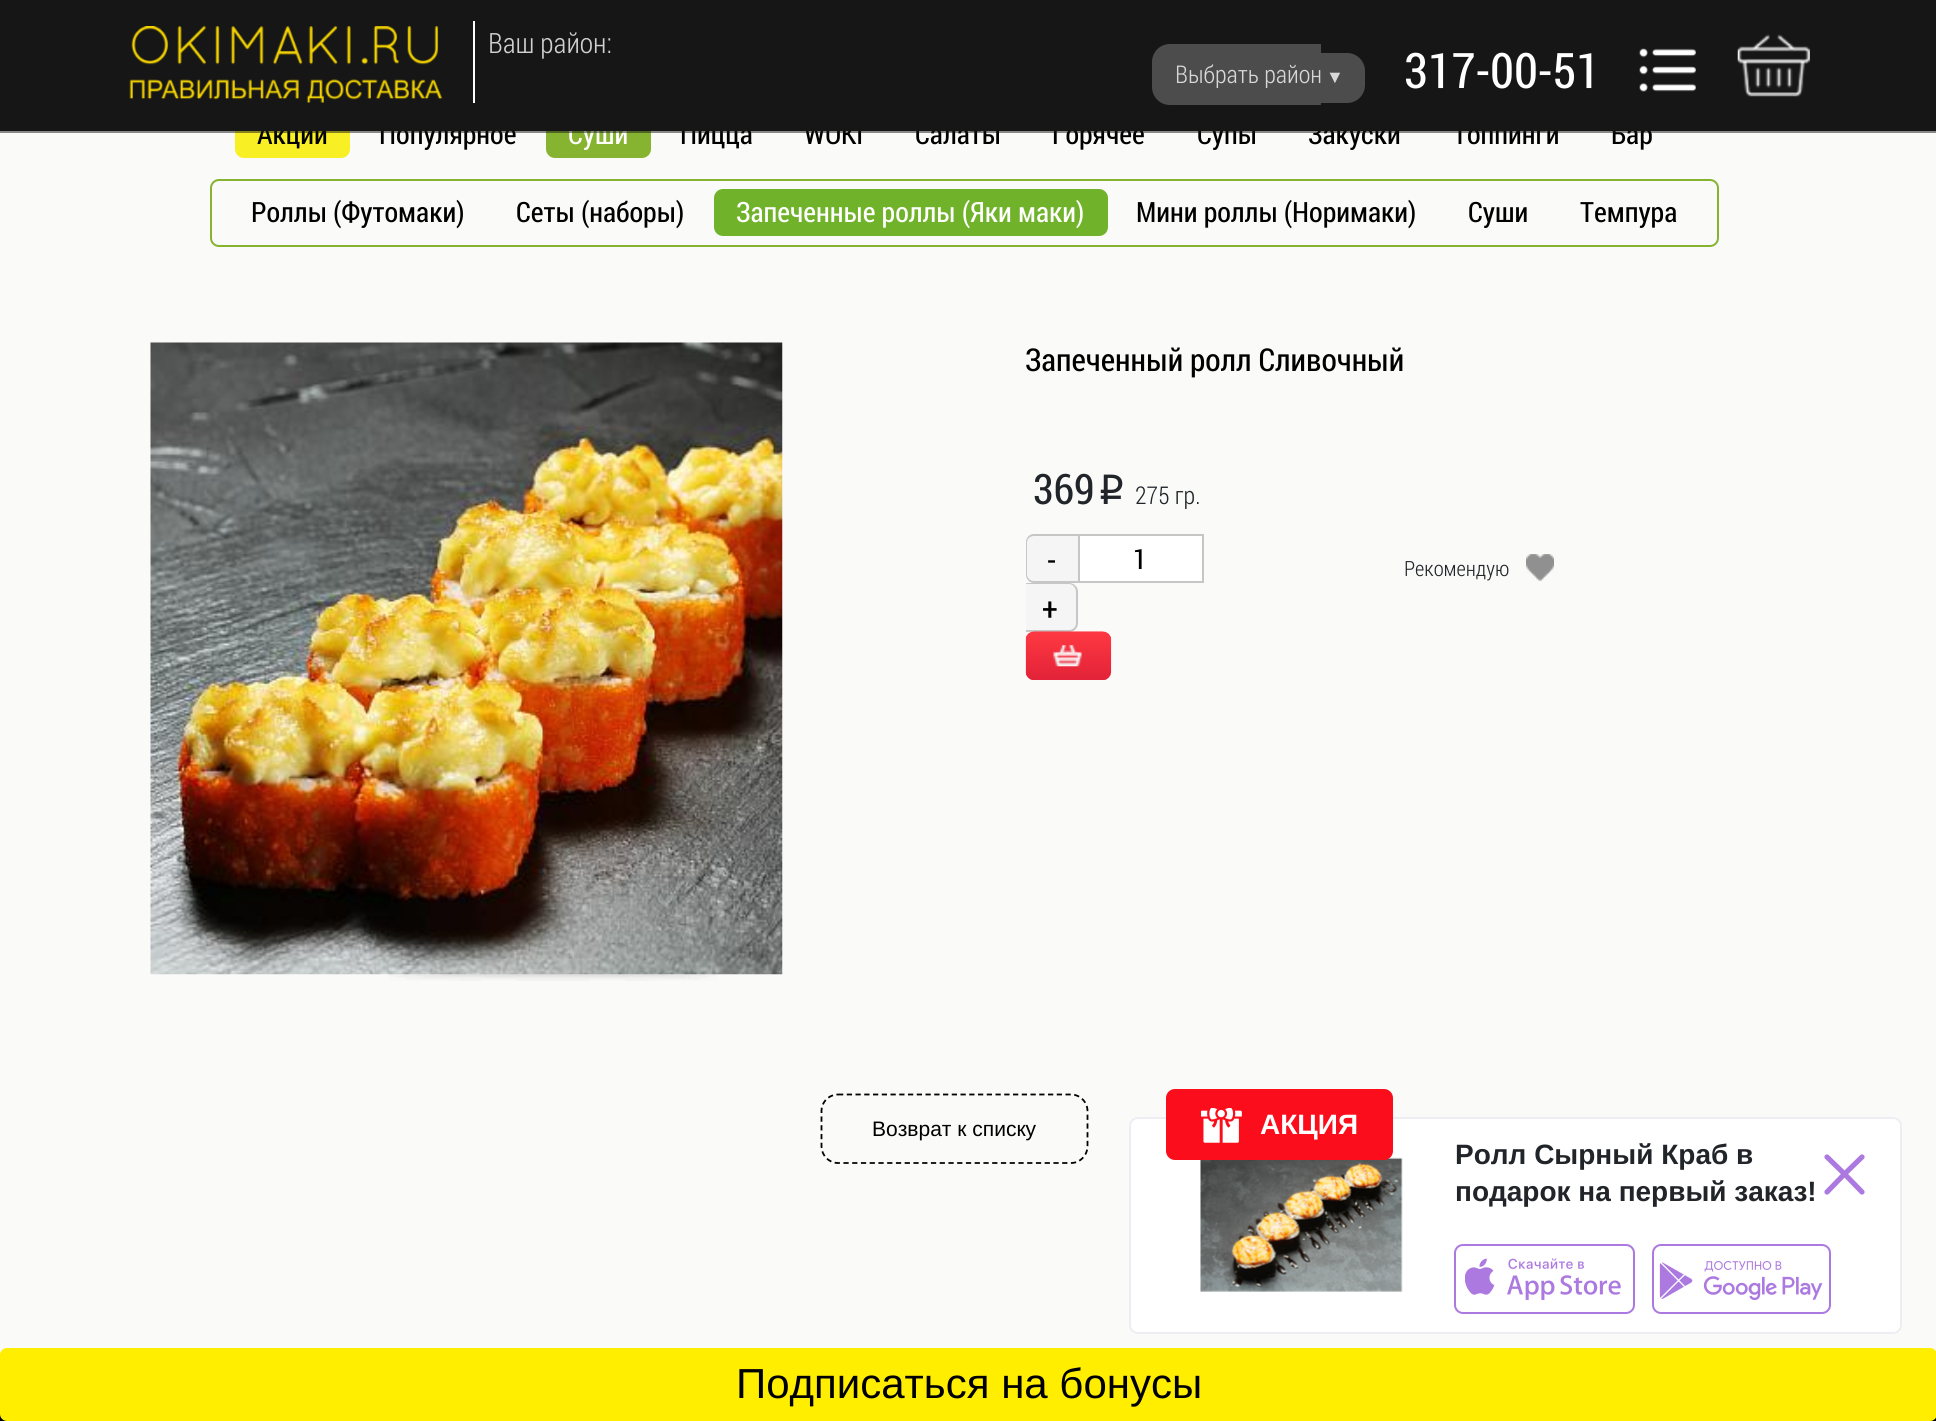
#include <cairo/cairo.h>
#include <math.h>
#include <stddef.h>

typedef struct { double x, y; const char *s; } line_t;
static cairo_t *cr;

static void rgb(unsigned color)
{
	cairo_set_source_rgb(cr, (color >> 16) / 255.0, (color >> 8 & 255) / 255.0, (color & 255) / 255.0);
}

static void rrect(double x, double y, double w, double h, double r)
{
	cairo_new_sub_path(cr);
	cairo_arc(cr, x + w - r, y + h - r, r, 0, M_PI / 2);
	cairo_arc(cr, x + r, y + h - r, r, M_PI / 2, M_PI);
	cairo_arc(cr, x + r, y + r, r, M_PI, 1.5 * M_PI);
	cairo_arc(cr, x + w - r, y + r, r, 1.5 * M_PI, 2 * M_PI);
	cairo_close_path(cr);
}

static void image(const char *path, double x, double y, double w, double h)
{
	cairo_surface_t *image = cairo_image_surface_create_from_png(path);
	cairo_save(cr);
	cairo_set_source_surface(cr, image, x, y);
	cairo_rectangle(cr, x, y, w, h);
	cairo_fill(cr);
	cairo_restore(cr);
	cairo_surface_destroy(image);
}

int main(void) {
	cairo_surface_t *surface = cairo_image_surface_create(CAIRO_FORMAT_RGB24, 1936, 1421);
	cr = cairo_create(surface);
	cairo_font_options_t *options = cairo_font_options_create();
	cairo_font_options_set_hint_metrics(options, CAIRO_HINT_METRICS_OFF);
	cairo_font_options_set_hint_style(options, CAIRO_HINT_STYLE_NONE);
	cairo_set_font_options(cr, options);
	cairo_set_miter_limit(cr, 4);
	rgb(0xfafaf9);
	cairo_paint(cr);
	rgb(0x86b330);
	rrect(546, 110, 105, 48, 9);
	cairo_fill(cr);
	rrect(211, 180, 1507, 66, 8);
	cairo_stroke(cr);
	rgb(0x70b32b);
	rrect(714, 189, 394, 47, 9);
	cairo_fill(cr);
	rgb(0xf8ef24);
	rrect(235, 110, 115, 48, 9);
	cairo_fill(cr);
	image("img/4.png", 150, 342, 633, 633);
	image("img/5.png", 389, 974, 328, 7);
	rgb(0xf5f5f5);
	cairo_new_path(cr);
	cairo_move_to(cr, 1035, 534);
	cairo_line_to(cr, 1078, 534);
	cairo_line_to(cr, 1078, 583);
	cairo_line_to(cr, 1035, 583);
	cairo_curve_to(cr, 1030, 583, 1026, 579, 1026, 574);
	cairo_line_to(cr, 1026, 543);
	cairo_curve_to(cr, 1026, 538, 1030, 534, 1035, 534);
	cairo_close_path(cr);
	cairo_fill(cr);
	rgb(0xc6c6c6);
	cairo_set_fill_rule(cr, CAIRO_FILL_RULE_EVEN_ODD);
	cairo_new_path(cr);
	cairo_move_to(cr, 1034, 534);
	cairo_line_to(cr, 1078, 534);
	cairo_line_to(cr, 1078, 583);
	cairo_line_to(cr, 1034, 583);
	cairo_curve_to(cr, 1029, 583, 1026, 579, 1026, 574);
	cairo_line_to(cr, 1026, 542);
	cairo_curve_to(cr, 1026, 538, 1029, 534, 1034, 534);
	cairo_close_path(cr);
	cairo_move_to(cr, 1034, 536);
	cairo_line_to(cr, 1078, 536);
	cairo_line_to(cr, 1078, 581);
	cairo_line_to(cr, 1034, 581);
	cairo_curve_to(cr, 1030, 581, 1027, 578, 1027, 574);
	cairo_line_to(cr, 1027, 542);
	cairo_curve_to(cr, 1027, 539, 1030, 536, 1034, 536);
	cairo_close_path(cr);
	cairo_fill(cr);
	rgb(0xffffff);
	cairo_rectangle(cr, 1079, 535, 124, 47);
	cairo_fill_preserve(cr);
	rgb(0xc6c6c6);
	cairo_stroke(cr);
	rgb(0xf5f5f5);
	cairo_new_path(cr);
	cairo_move_to(cr, 1026, 583);
	cairo_line_to(cr, 1069, 583);
	cairo_curve_to(cr, 1074, 583, 1078, 587, 1078, 592);
	cairo_line_to(cr, 1078, 623);
	cairo_curve_to(cr, 1078, 628, 1074, 632, 1069, 632);
	cairo_line_to(cr, 1026, 632);
	cairo_close_path(cr);
	cairo_fill(cr);
	rgb(0xc6c6c6);
	cairo_new_path(cr);
	cairo_move_to(cr, 1026, 583);
	cairo_line_to(cr, 1069, 583);
	cairo_curve_to(cr, 1074, 583, 1078, 587, 1078, 592);
	cairo_line_to(cr, 1078, 623);
	cairo_curve_to(cr, 1078, 628, 1074, 632, 1069, 632);
	cairo_line_to(cr, 1026, 632);
	cairo_close_path(cr);
	cairo_move_to(cr, 1026, 584);
	cairo_line_to(cr, 1069, 584);
	cairo_curve_to(cr, 1073, 584, 1076, 588, 1076, 592);
	cairo_line_to(cr, 1076, 623);
	cairo_curve_to(cr, 1076, 627, 1073, 630, 1069, 630);
	cairo_line_to(cr, 1026, 630);
	cairo_close_path(cr);
	cairo_fill(cr);
	image("img/6.png", 1526, 554, 28, 27);
	image("img/7.png", 1526, 554, 28, 27);
	image("img/8.png", 1025, 631, 87, 49);
	cairo_new_path(cr);
	cairo_move_to(cr, 838, 1094.5);
	cairo_line_to(cr, 1071, 1094.5);
	cairo_curve_to(cr, 1080, 1094.5, 1087.5, 1102, 1087.5, 1111);
	cairo_line_to(cr, 1087.5, 1146);
	cairo_curve_to(cr, 1087.5, 1155.5, 1080, 1163, 1071, 1163);
	cairo_line_to(cr, 838, 1163);
	cairo_curve_to(cr, 829, 1163, 821.5, 1155.5, 821.5, 1146);
	cairo_line_to(cr, 821.5, 1111);
	cairo_curve_to(cr, 821.5, 1102, 829, 1094.5, 838, 1094.5);
	cairo_close_path(cr);
	rgb(0x000000);
	cairo_set_line_width(cr, 1.8);
	cairo_set_dash(cr, (double[]){5.25, 3.5}, 2, 0);
	cairo_stroke(cr);
	cairo_rectangle(cr, 0, 1414, 1936, 7);
	cairo_fill(cr);
	rgb(0xffee00);
	rrect(0, 1348, 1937, 73, 7);
	cairo_fill(cr);
	rgb(0xffffff);
	rrect(1130, 1118, 771, 215, 8);
	cairo_fill_preserve(cr);
	rgb(0xefecf4);
	cairo_set_line_width(cr, 2);
	cairo_set_dash(cr, NULL, 0, 0);
	cairo_stroke(cr);
	image("img/10.png", 1200, 1157, 203, 135);
	rgb(0xfb0d1b);
	rrect(1166, 1089, 227, 71, 9);
	cairo_fill(cr);
	image("img/9.png", 1201, 1108, 41, 35);
	image("img/11.png", 1465, 1258, 156, 42);
	rrect(1455, 1245, 179, 68, 8);
	rgb(0xac79e0);
	cairo_stroke(cr);
	image("img/12.png", 1659, 1261, 164, 39);
	rrect(1653, 1245, 177, 68, 8);
	cairo_stroke(cr);
	cairo_new_path(cr);
	cairo_move_to(cr, 1862, 1192);
	cairo_line_to(cr, 1844.5, 1174);
	cairo_line_to(cr, 1862, 1157);
	cairo_move_to(cr, 1827, 1192);
	cairo_line_to(cr, 1844.5, 1174);
	cairo_line_to(cr, 1827, 1157);
	cairo_set_line_width(cr, 5.2);
	cairo_set_line_cap(cr, CAIRO_LINE_CAP_ROUND);
	cairo_set_line_join(cr, CAIRO_LINE_JOIN_ROUND);
	cairo_stroke(cr);
	cairo_select_font_face(cr, "Roboto Condensed", CAIRO_FONT_SLANT_NORMAL, CAIRO_FONT_WEIGHT_NORMAL);
	cairo_set_font_size(cr, 28);
	rgb(0x000000);
	cairo_move_to(cr, 804, 144);
	cairo_show_text(cr, "WOKi");
	rgb(0xffffff);
	cairo_move_to(cr, 568, 144);
	cairo_show_text(cr, "Суши");
	rgb(0x000000);
	cairo_move_to(cr, 251, 222);
	cairo_show_text(cr, "Роллы (Футомаки)");
	cairo_move_to(cr, 516, 222);
	cairo_show_text(cr, "Сеты (наборы)");
	rgb(0xffffff);
	cairo_move_to(cr, 736, 222);
	cairo_show_text(cr, "Запеченные роллы (Яки маки)");
	rgb(0x000000);
	{
		static const line_t items[] = {
			{1136, 222, "Мини роллы (Норимаки)"},
			{1468, 222, "Суши"},
			{1580, 222, "Темпура"},
			{257, 144, "Акции"},
			{379, 144, "Популярное"},
			{680, 144, "Пицца"},
			{915, 144, "Салаты"},
			{1052, 144, "Горячее"},
			{1197, 144, "Супы"},
			{1308, 144, "Закуски"},
			{1453, 144, "Топпинги"},
			{1611, 144, "Бар"},
		};
		for (size_t i = 0; i < sizeof items / sizeof *items; i++) {
			cairo_move_to(cr, items[i].x, items[i].y);
			cairo_show_text(cr, items[i].s);
		}
	}
	rgb(0x161616);
	cairo_rectangle(cr, 0, 0, 1936, 131);
	cairo_fill(cr);
	rgb(0x4c4c4c);
	cairo_new_path(cr);
	cairo_move_to(cr, 1321, 53);
	cairo_line_to(cr, 1347, 53);
	cairo_curve_to(cr, 1357, 53, 1365, 61, 1365, 71);
	cairo_line_to(cr, 1365, 85);
	cairo_curve_to(cr, 1365, 95, 1357, 103, 1347, 103);
	cairo_line_to(cr, 1321, 103);
	cairo_close_path(cr);
	cairo_fill(cr);
	cairo_select_font_face(cr, "Liberation Sans", CAIRO_FONT_SLANT_NORMAL, CAIRO_FONT_WEIGHT_NORMAL);
	cairo_set_font_size(cr, 18);
	rgb(0xd8d8d8);
	cairo_move_to(cr, 1326, 83);
	cairo_show_text(cr, "▼");
	rgb(0x4c4c4c);
	cairo_new_path(cr);
	cairo_move_to(cr, 1170, 44);
	cairo_line_to(cr, 1321, 44);
	cairo_line_to(cr, 1321, 105);
	cairo_line_to(cr, 1170, 105);
	cairo_curve_to(cr, 1160, 105, 1152, 97, 1152, 87);
	cairo_line_to(cr, 1152, 62);
	cairo_curve_to(cr, 1152, 52, 1160, 44, 1170, 44);
	cairo_close_path(cr);
	cairo_fill(cr);
	cairo_select_font_face(cr, "Roboto Condensed Light", CAIRO_FONT_SLANT_NORMAL, CAIRO_FONT_WEIGHT_NORMAL);
	cairo_set_font_size(cr, 24.5);
	rgb(0xd8d8d8);
	cairo_move_to(cr, 1175, 83);
	cairo_show_text(cr, "Выбрать район");
	image("img/3.png", 1737, 34, 73, 63);
	image("img/2.png", 1639, 48, 57, 44);
	cairo_select_font_face(cr, "Roboto Condensed", CAIRO_FONT_SLANT_NORMAL, CAIRO_FONT_WEIGHT_NORMAL);
	cairo_set_font_size(cr, 49);
	rgb(0xffffff);
	cairo_move_to(cr, 1404, 88);
	cairo_show_text(cr, "317-00-51");
	cairo_select_font_face(cr, "Roboto Condensed Light", CAIRO_FONT_SLANT_NORMAL, CAIRO_FONT_WEIGHT_NORMAL);
	cairo_set_font_size(cr, 28);
	rgb(0xd1d1d1);
	cairo_move_to(cr, 488, 53);
	cairo_show_text(cr, "Ваш район:");
	rgb(0xffffff);
	cairo_rectangle(cr, 473, 21, 2, 82);
	cairo_fill(cr);
	image("img/1.png", 129, 26, 314, 77);
	cairo_set_source_rgba(cr, 0.086, 0.086, 0.086, 0.5);
	cairo_rectangle(cr, 0, 131, 1936, 2);
	cairo_fill(cr);
	cairo_select_font_face(cr, "Roboto Condensed", CAIRO_FONT_SLANT_NORMAL, CAIRO_FONT_WEIGHT_NORMAL);
	cairo_set_font_size(cr, 31.5);
	rgb(0x000000);
	cairo_move_to(cr, 1025, 371);
	cairo_show_text(cr, "Запеченный ролл Сливочный");
	cairo_set_font_size(cr, 42);
	rgb(0x212529);
	cairo_move_to(cr, 1033, 504);
	cairo_show_text(cr, "369");
	cairo_select_font_face(cr, "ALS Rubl", CAIRO_FONT_SLANT_NORMAL, CAIRO_FONT_WEIGHT_NORMAL);
	cairo_move_to(cr, 1097, 504);
	cairo_show_text(cr, "i");
	cairo_select_font_face(cr, "Roboto Condensed Light", CAIRO_FONT_SLANT_NORMAL, CAIRO_FONT_WEIGHT_NORMAL);
	cairo_set_font_size(cr, 24.5);
	cairo_move_to(cr, 1135, 504);
	cairo_show_text(cr, "275 гр.");
	cairo_select_font_face(cr, "Roboto Condensed", CAIRO_FONT_SLANT_NORMAL, CAIRO_FONT_WEIGHT_NORMAL);
	cairo_set_font_size(cr, 31.5);
	rgb(0x000000);
	cairo_move_to(cr, 1047, 571);
	cairo_show_text(cr, "-");
	cairo_set_font_size(cr, 28);
	cairo_move_to(cr, 1133, 569);
	cairo_show_text(cr, "1");
	cairo_set_font_size(cr, 31.5);
	cairo_move_to(cr, 1042, 620);
	cairo_show_text(cr, "+");
	cairo_select_font_face(cr, "Roboto Condensed Light", CAIRO_FONT_SLANT_NORMAL, CAIRO_FONT_WEIGHT_NORMAL);
	cairo_set_font_size(cr, 21);
	rgb(0x212529);
	cairo_move_to(cr, 1404, 576);
	cairo_show_text(cr, "Рекомендую");
	cairo_select_font_face(cr, "Liberation Sans", CAIRO_FONT_SLANT_NORMAL, CAIRO_FONT_WEIGHT_NORMAL);
	rgb(0x000000);
	cairo_move_to(cr, 872, 1136);
	cairo_show_text(cr, "Возврат к списку");
	cairo_set_font_size(cr, 42);
	cairo_move_to(cr, 736, 1398);
	cairo_show_text(cr, "Подписаться на бонусы");
	cairo_select_font_face(cr, "Liberation Sans", CAIRO_FONT_SLANT_NORMAL, CAIRO_FONT_WEIGHT_BOLD);
	cairo_set_font_size(cr, 28);
	rgb(0xffffff);
	cairo_move_to(cr, 1260, 1134);
	cairo_show_text(cr, "АКЦИЯ");
	rgb(0x212529);
	cairo_move_to(cr, 1455, 1164);
	cairo_show_text(cr, "Ролл Сырный Краб в");
	cairo_move_to(cr, 1455, 1201);
	cairo_show_text(cr, "подарок на первый заказ!");
	cairo_surface_write_to_png(surface, "page.png");
	cairo_font_options_destroy(options);
	cairo_destroy(cr);
	cairo_surface_destroy(surface);
	return 0;
}
